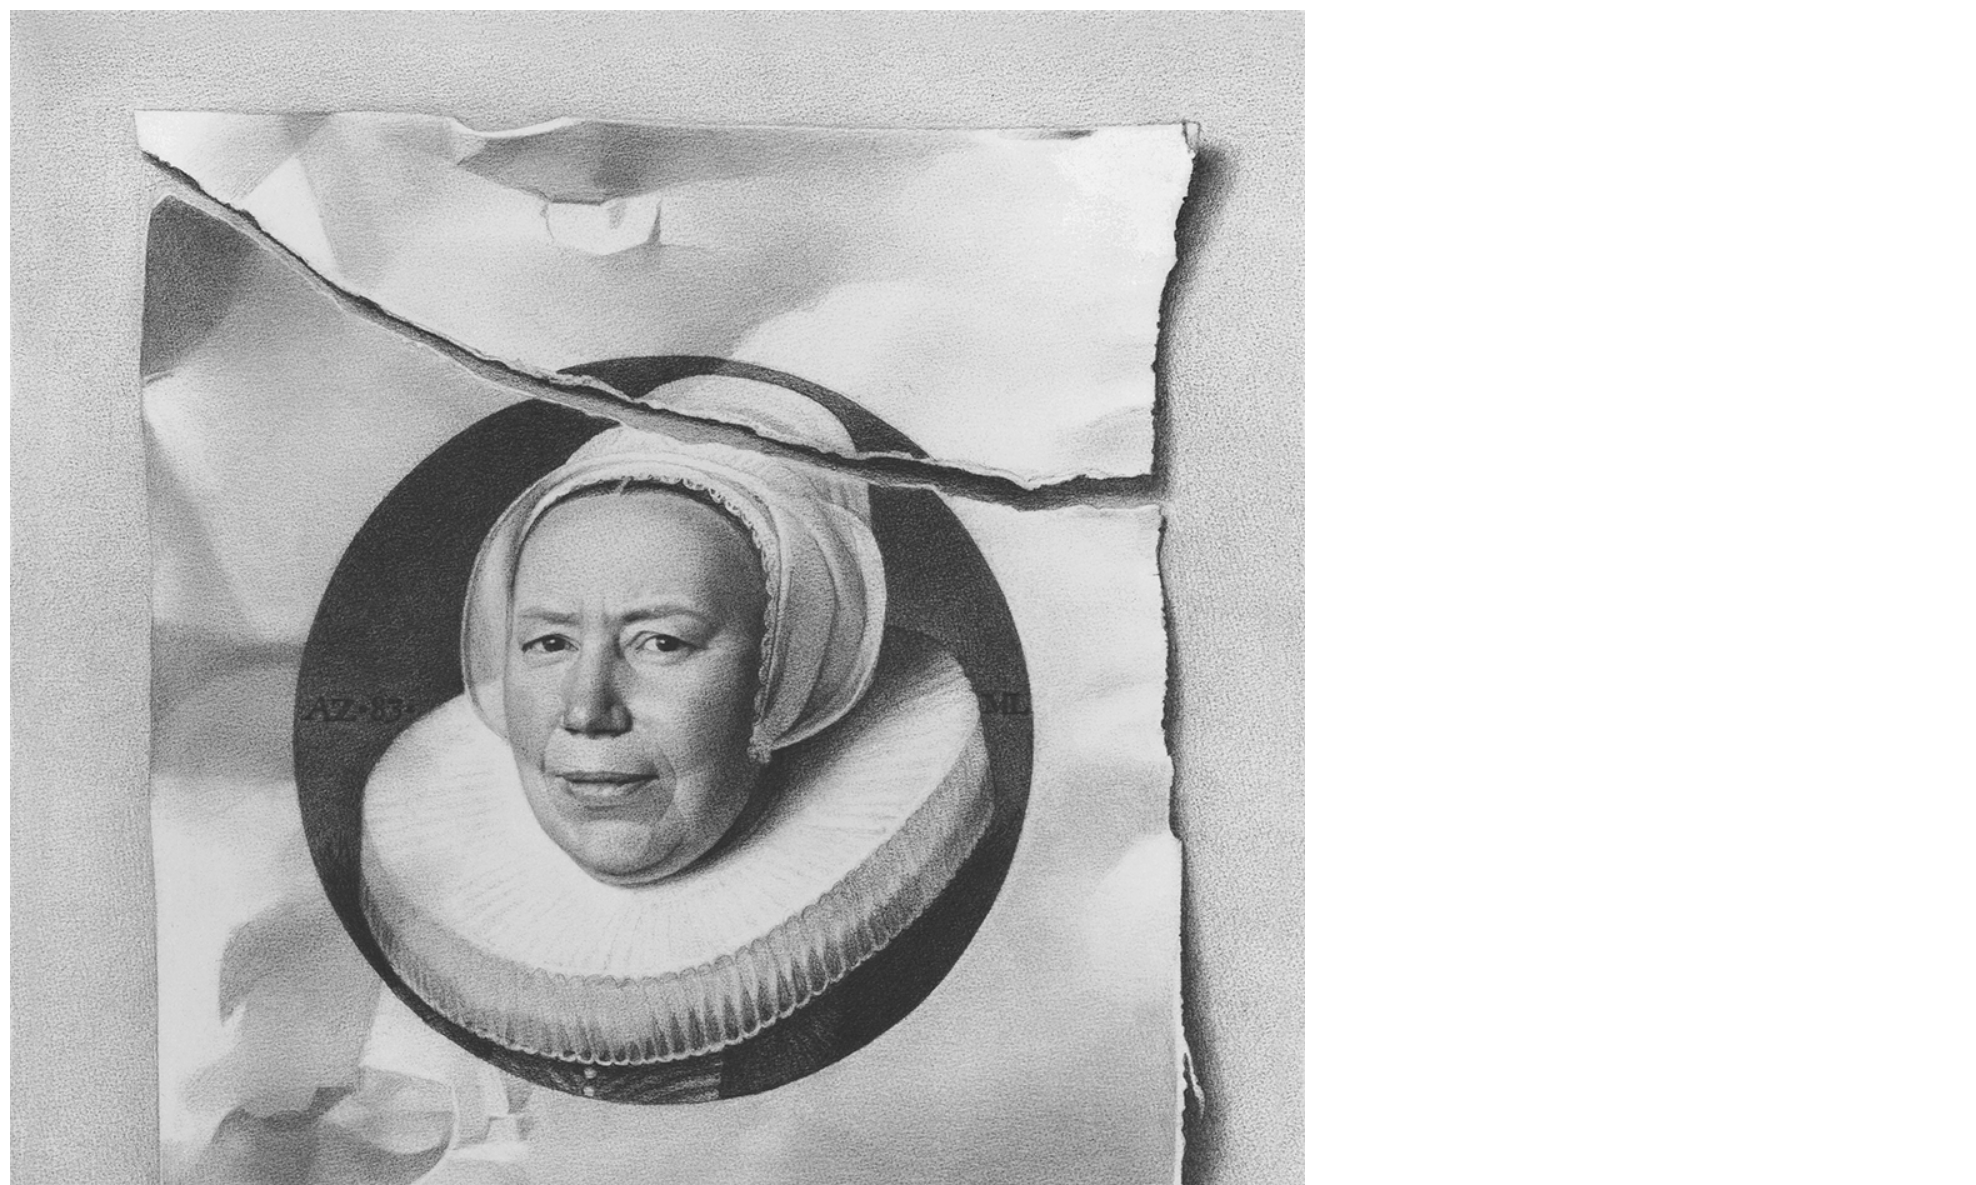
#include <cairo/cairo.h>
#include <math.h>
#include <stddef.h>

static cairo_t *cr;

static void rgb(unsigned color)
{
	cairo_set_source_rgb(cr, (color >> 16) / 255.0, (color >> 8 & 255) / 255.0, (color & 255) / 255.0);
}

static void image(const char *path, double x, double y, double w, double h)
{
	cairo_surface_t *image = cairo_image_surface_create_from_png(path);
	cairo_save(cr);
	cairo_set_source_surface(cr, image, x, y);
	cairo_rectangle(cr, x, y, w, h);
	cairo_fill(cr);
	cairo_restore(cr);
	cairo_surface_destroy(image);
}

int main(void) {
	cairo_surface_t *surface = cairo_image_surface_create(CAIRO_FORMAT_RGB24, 1976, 1185);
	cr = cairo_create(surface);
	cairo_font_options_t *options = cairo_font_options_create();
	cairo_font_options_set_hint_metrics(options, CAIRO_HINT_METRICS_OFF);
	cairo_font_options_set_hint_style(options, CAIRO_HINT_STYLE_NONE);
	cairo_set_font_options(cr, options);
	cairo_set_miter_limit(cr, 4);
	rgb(0xffffff);
	cairo_paint(cr);
	image("img/1.png", 10, 10, 1295, 1175);
	cairo_surface_write_to_png(surface, "page.png");
	cairo_font_options_destroy(options);
	cairo_destroy(cr);
	cairo_surface_destroy(surface);
	return 0;
}
